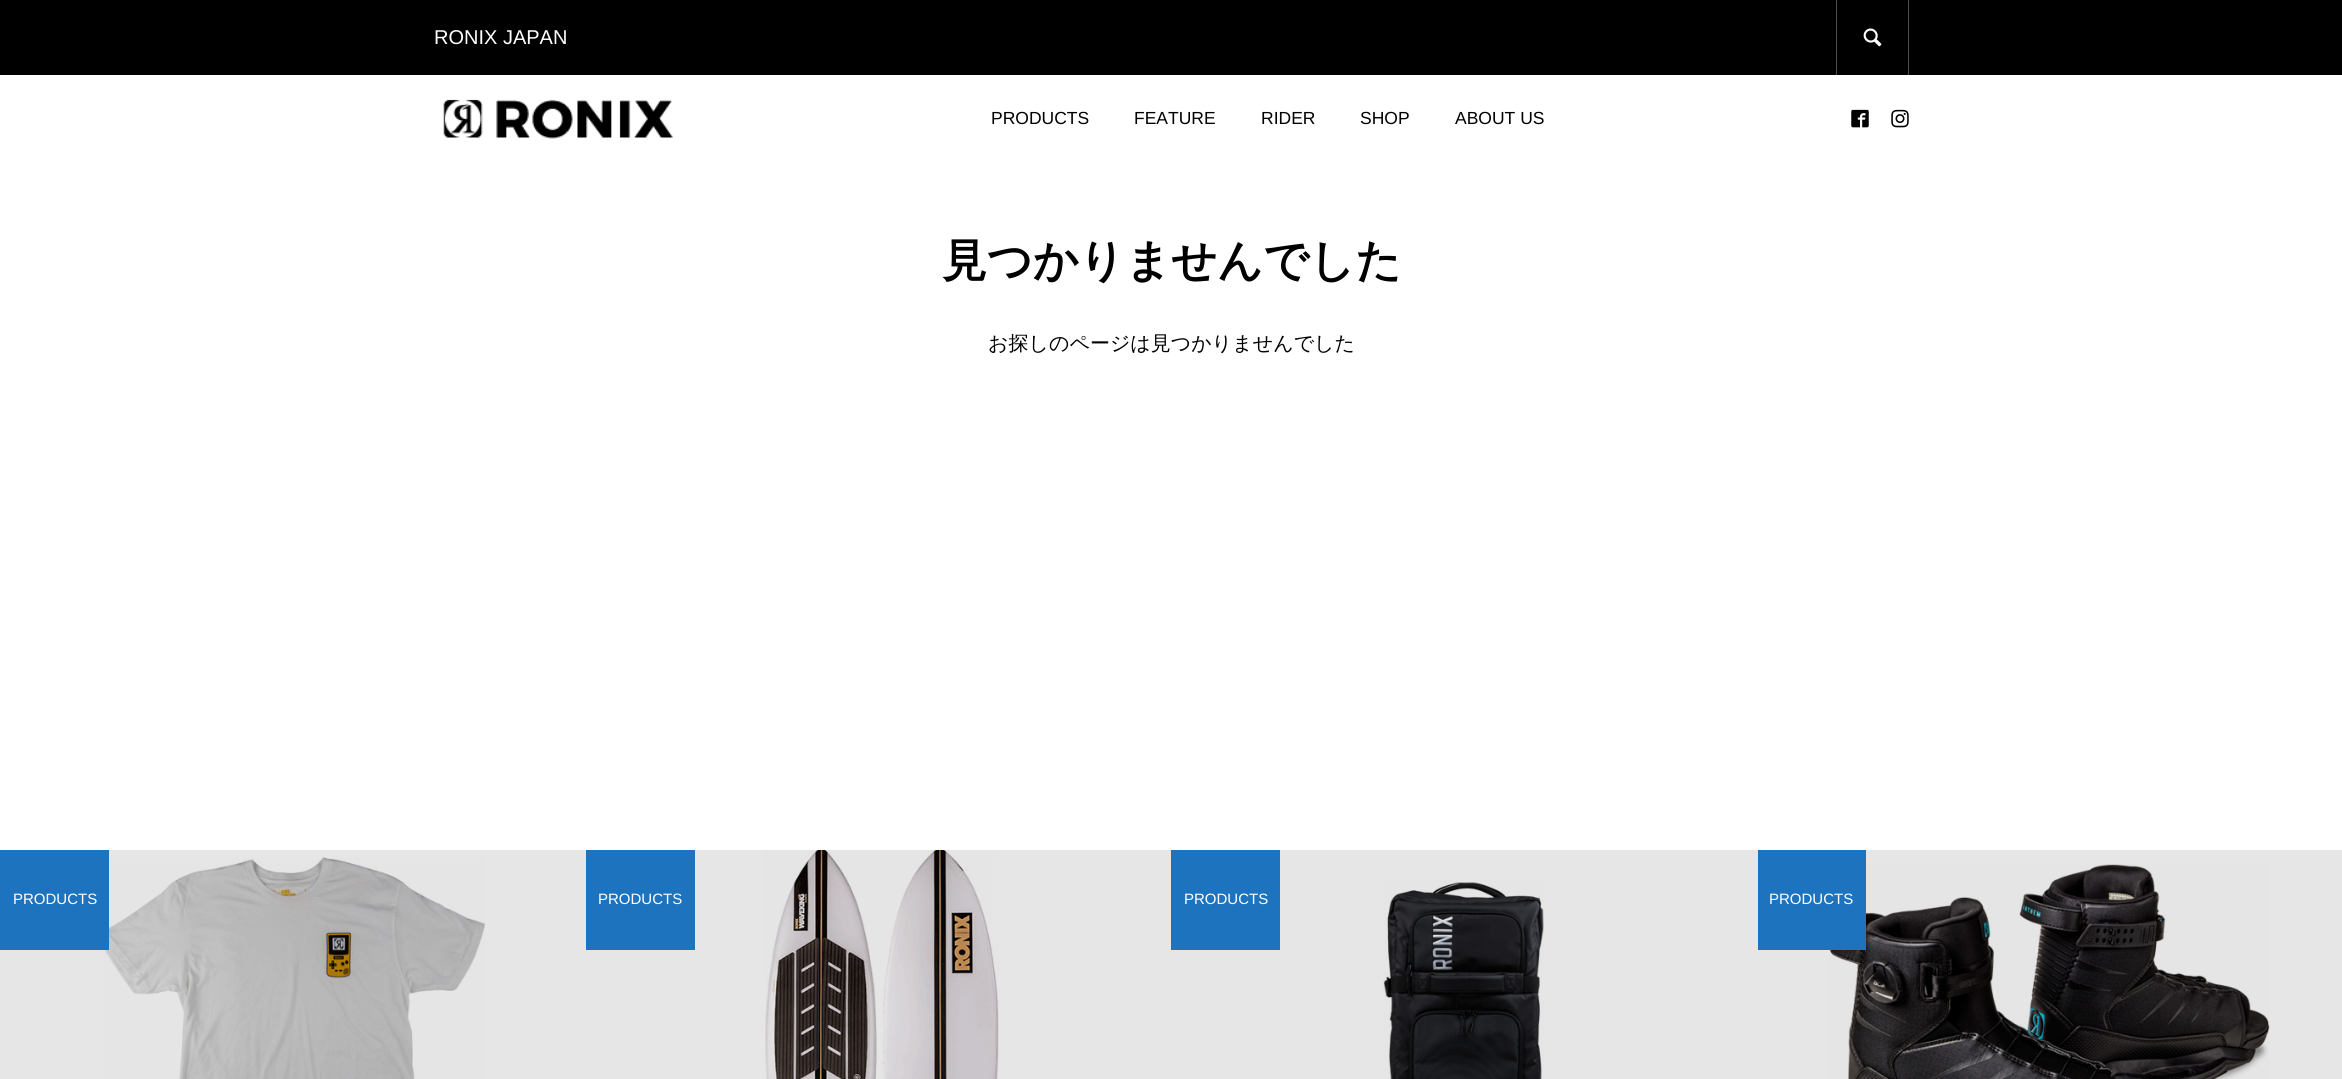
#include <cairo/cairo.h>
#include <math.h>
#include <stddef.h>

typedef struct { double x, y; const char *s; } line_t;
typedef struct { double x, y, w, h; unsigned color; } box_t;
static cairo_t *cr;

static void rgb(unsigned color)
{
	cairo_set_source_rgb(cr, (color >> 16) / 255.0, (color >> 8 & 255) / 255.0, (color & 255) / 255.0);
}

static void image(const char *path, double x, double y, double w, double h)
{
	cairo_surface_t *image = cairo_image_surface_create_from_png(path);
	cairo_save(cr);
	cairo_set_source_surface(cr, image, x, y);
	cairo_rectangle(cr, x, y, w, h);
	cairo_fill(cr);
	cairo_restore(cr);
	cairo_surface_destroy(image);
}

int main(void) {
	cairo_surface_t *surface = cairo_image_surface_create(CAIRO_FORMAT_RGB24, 2342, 1079);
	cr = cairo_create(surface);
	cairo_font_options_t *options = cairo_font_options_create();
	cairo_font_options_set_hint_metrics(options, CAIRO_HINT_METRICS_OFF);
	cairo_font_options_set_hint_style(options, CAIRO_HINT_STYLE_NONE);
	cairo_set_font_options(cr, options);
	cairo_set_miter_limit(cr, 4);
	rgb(0xffffff);
	cairo_paint(cr);
	{
		static const box_t items[] = {
			{0, 850, 2342, 229, 0xe6e6e6},
			{0, 0, 2342, 75, 0x000000},
			{1908, 0, 1, 75, 0x4d4d4d},
			{1836, 0, 1, 75, 0x4d4d4d},
		};
		for (size_t i = 0; i < sizeof items / sizeof *items; i++) {
			rgb(items[i].color);
			cairo_rectangle(cr, items[i].x, items[i].y, items[i].w, items[i].h);
			cairo_fill(cr);
		}
	}
	image("img/1.png", 1863, 28, 19, 19);
	image("img/2.png", 443, 99, 230, 40);
	image("img/3.png", 1851, 109, 18, 19);
	image("img/4.png", 1891, 109, 18, 19);
	image("img/5.png", 97, 857, 388, 222);
	rgb(0x1e73be);
	cairo_rectangle(cr, 0, 850, 109, 100);
	cairo_fill(cr);
	cairo_rectangle(cr, 586, 850, 109, 100);
	cairo_fill(cr);
	image("img/6.png", 765, 850, 234, 229);
	cairo_rectangle(cr, 1171, 850, 109, 100);
	cairo_fill(cr);
	image("img/7.png", 1383, 880, 162, 199);
	image("img/8.png", 1829, 864, 441, 215);
	cairo_rectangle(cr, 1758, 850, 108, 100);
	cairo_fill(cr);
	cairo_select_font_face(cr, "Liberation Sans", CAIRO_FONT_SLANT_NORMAL, CAIRO_FONT_WEIGHT_NORMAL);
	cairo_set_font_size(cr, 20);
	rgb(0xffffff);
	cairo_move_to(cr, 434, 44);
	cairo_show_text(cr, "RONIX JAPAN");
	cairo_set_font_size(cr, 17.5);
	rgb(0x000000);
	{
		static const line_t items[] = {
			{991, 124, "PRODUCTS"},
			{1134, 124, "FEATURE"},
			{1261, 124, "RIDER"},
			{1360, 124, "SHOP"},
			{1455, 124, "ABOUT US"},
		};
		for (size_t i = 0; i < sizeof items / sizeof *items; i++) {
			cairo_move_to(cr, items[i].x, items[i].y);
			cairo_show_text(cr, items[i].s);
		}
	}
	cairo_select_font_face(cr, "WenQuanYi Zen Hei", CAIRO_FONT_SLANT_NORMAL, CAIRO_FONT_WEIGHT_BOLD);
	cairo_set_font_size(cr, 45);
	cairo_move_to(cr, 942, 276);
	cairo_show_text(cr, "見つかりませんでした");
	cairo_select_font_face(cr, "WenQuanYi Zen Hei Medium", CAIRO_FONT_SLANT_NORMAL, CAIRO_FONT_WEIGHT_NORMAL);
	cairo_set_font_size(cr, 20);
	cairo_move_to(cr, 988, 350);
	cairo_show_text(cr, "お探しのページは見つかりませんでした");
	cairo_select_font_face(cr, "Liberation Sans", CAIRO_FONT_SLANT_NORMAL, CAIRO_FONT_WEIGHT_NORMAL);
	cairo_set_font_size(cr, 15);
	rgb(0xffffff);
	{
		static const line_t items[] = {
			{13, 904, "PRODUCTS"},
			{598, 904, "PRODUCTS"},
			{1184, 904, "PRODUCTS"},
			{1769, 904, "PRODUCTS"},
		};
		for (size_t i = 0; i < sizeof items / sizeof *items; i++) {
			cairo_move_to(cr, items[i].x, items[i].y);
			cairo_show_text(cr, items[i].s);
		}
	}
	cairo_surface_write_to_png(surface, "page.png");
	cairo_font_options_destroy(options);
	cairo_destroy(cr);
	cairo_surface_destroy(surface);
	return 0;
}
